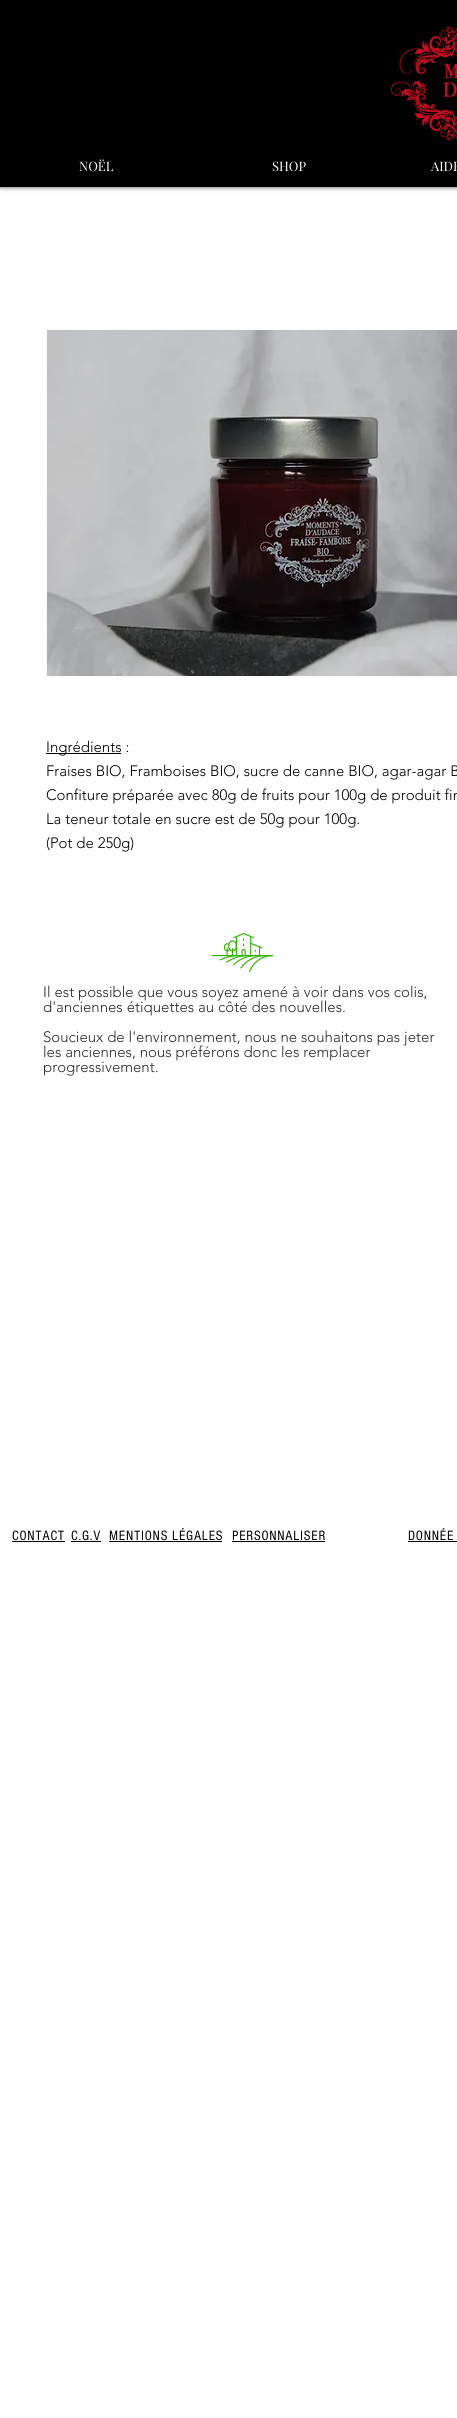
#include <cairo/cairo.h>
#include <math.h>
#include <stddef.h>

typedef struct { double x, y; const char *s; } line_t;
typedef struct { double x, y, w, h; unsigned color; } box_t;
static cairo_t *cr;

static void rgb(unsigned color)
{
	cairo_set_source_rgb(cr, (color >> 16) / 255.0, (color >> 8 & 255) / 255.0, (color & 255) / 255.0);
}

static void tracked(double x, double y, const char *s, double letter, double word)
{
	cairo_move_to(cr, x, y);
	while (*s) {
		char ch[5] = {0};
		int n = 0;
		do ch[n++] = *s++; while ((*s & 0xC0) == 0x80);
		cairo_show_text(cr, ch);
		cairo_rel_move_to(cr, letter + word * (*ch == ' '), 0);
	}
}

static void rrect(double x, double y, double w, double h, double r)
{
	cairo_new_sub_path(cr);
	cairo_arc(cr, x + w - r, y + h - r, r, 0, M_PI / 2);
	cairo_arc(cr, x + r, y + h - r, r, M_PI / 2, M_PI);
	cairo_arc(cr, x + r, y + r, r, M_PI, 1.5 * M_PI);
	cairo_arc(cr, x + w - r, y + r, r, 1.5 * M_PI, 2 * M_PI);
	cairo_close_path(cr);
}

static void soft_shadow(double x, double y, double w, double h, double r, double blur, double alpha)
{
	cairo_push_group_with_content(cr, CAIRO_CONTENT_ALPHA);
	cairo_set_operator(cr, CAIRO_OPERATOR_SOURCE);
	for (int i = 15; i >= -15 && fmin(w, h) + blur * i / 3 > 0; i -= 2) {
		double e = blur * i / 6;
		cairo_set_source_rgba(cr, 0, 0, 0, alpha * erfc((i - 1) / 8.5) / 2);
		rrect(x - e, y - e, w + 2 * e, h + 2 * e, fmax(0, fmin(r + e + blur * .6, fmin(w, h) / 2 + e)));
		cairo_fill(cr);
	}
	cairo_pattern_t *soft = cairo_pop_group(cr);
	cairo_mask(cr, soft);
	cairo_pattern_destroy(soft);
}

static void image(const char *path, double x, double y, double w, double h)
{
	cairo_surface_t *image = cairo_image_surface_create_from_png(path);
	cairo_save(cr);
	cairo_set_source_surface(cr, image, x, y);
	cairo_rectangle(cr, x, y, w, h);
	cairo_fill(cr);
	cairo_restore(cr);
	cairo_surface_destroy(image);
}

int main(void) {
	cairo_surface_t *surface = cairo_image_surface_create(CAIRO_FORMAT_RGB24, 457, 2418);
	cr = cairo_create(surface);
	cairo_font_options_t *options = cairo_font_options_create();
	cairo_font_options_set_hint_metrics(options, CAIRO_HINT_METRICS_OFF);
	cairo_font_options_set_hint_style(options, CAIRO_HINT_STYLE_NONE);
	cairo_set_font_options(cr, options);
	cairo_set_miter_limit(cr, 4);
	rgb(0xffffff);
	cairo_paint(cr);
	rgb(0x000000);
	soft_shadow(0, 0, 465, 187, 0, 2.5, 0.7);
	rgb(0x000000);
	cairo_rectangle(cr, 0, 0, 457, 187);
	cairo_fill(cr);
	image("img/1.png", 390, 26, 67, 115);
	cairo_rectangle(cr, 46.5, 329.5, 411, 347);
	rgb(0xf9f9f9);
	cairo_set_line_width(cr, 1);
	cairo_stroke(cr);
	image("img/2.png", 47, 330, 410, 346);
	rgb(0x000000);
	cairo_rectangle(cr, 46, 753, 75, 1);
	cairo_fill(cr);
	image("img/3.png", 212, 933, 61, 39);
	{
		static const box_t items[] = {
			{12, 1541, 53, 1, 0x000000},
			{71, 1541, 30, 1, 0x000000},
			{109, 1541, 113, 1, 0x000000},
			{232, 1541, 93, 1, 0x000000},
			{408, 1541, 49, 1, 0x000000},
		};
		for (size_t i = 0; i < sizeof items / sizeof *items; i++) {
			rgb(items[i].color);
			cairo_rectangle(cr, items[i].x, items[i].y, items[i].w, items[i].h);
			cairo_fill(cr);
		}
	}
	cairo_select_font_face(cr, "Playfair Display", CAIRO_FONT_SLANT_NORMAL, CAIRO_FONT_WEIGHT_NORMAL);
	cairo_set_font_size(cr, 13);
	rgb(0xffffff);
	{
		static const line_t items[] = {
			{79, 171, "NOËL"},
			{272, 171, "SHOP"},
			{431, 171, "AIDE"},
		};
		for (size_t i = 0; i < sizeof items / sizeof *items; i++) {
			cairo_move_to(cr, items[i].x, items[i].y);
			cairo_show_text(cr, items[i].s);
		}
	}
	cairo_select_font_face(cr, "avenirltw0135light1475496 Light", CAIRO_FONT_SLANT_NORMAL, CAIRO_FONT_WEIGHT_NORMAL);
	cairo_set_font_size(cr, 15);
	rgb(0x000000);
	{
		static const line_t items[] = {
			{46, 752, "Ingrédients :"},
			{46, 776, "Fraises BIO, Framboises BIO, sucre de canne BIO, agar-agar B"},
			{46, 800, "Confiture préparée avec 80g de fruits pour 100g de produit fin"},
			{46, 824, "La teneur totale en sucre est de 50g pour 100g."},
			{46, 848, "(Pot de 250g)"},
		};
		for (size_t i = 0; i < sizeof items / sizeof *items; i++) {
			cairo_move_to(cr, items[i].x, items[i].y);
			cairo_show_text(cr, items[i].s);
		}
	}
	rgb(0x292929);
	{
		static const line_t items[] = {
			{43, 997, "Il est possible que vous soyez amené à voir dans vos colis,"},
			{43, 1012, "d'anciennes étiquettes au côté des nouvelles."},
			{43, 1042, "Soucieux de l'environnement, nous ne souhaitons pas jeter"},
			{43, 1057, "les anciennes, nous préférons donc les remplacer"},
			{43, 1072, "progressivement."},
		};
		for (size_t i = 0; i < sizeof items / sizeof *items; i++) {
			cairo_move_to(cr, items[i].x, items[i].y);
			cairo_show_text(cr, items[i].s);
		}
	}
	cairo_select_font_face(cr, "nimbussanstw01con", CAIRO_FONT_SLANT_NORMAL, CAIRO_FONT_WEIGHT_NORMAL);
	cairo_set_font_size(cr, 14);
	rgb(0x000000);
	{
		static const line_t items[] = {
			{12, 1540, "CONTACT"},
			{71, 1540, "C.G.V"},
			{109, 1540, "MENTIONS LÉGALES"},
			{232, 1540, "PERSONNALISER"},
			{408, 1540, "DONNÉE"},
		};
		for (size_t i = 0; i < sizeof items / sizeof *items; i++) {
			tracked(items[i].x, items[i].y, items[i].s, 0.75, 0);
		}
	}
	cairo_surface_write_to_png(surface, "page.png");
	cairo_font_options_destroy(options);
	cairo_destroy(cr);
	cairo_surface_destroy(surface);
	return 0;
}
